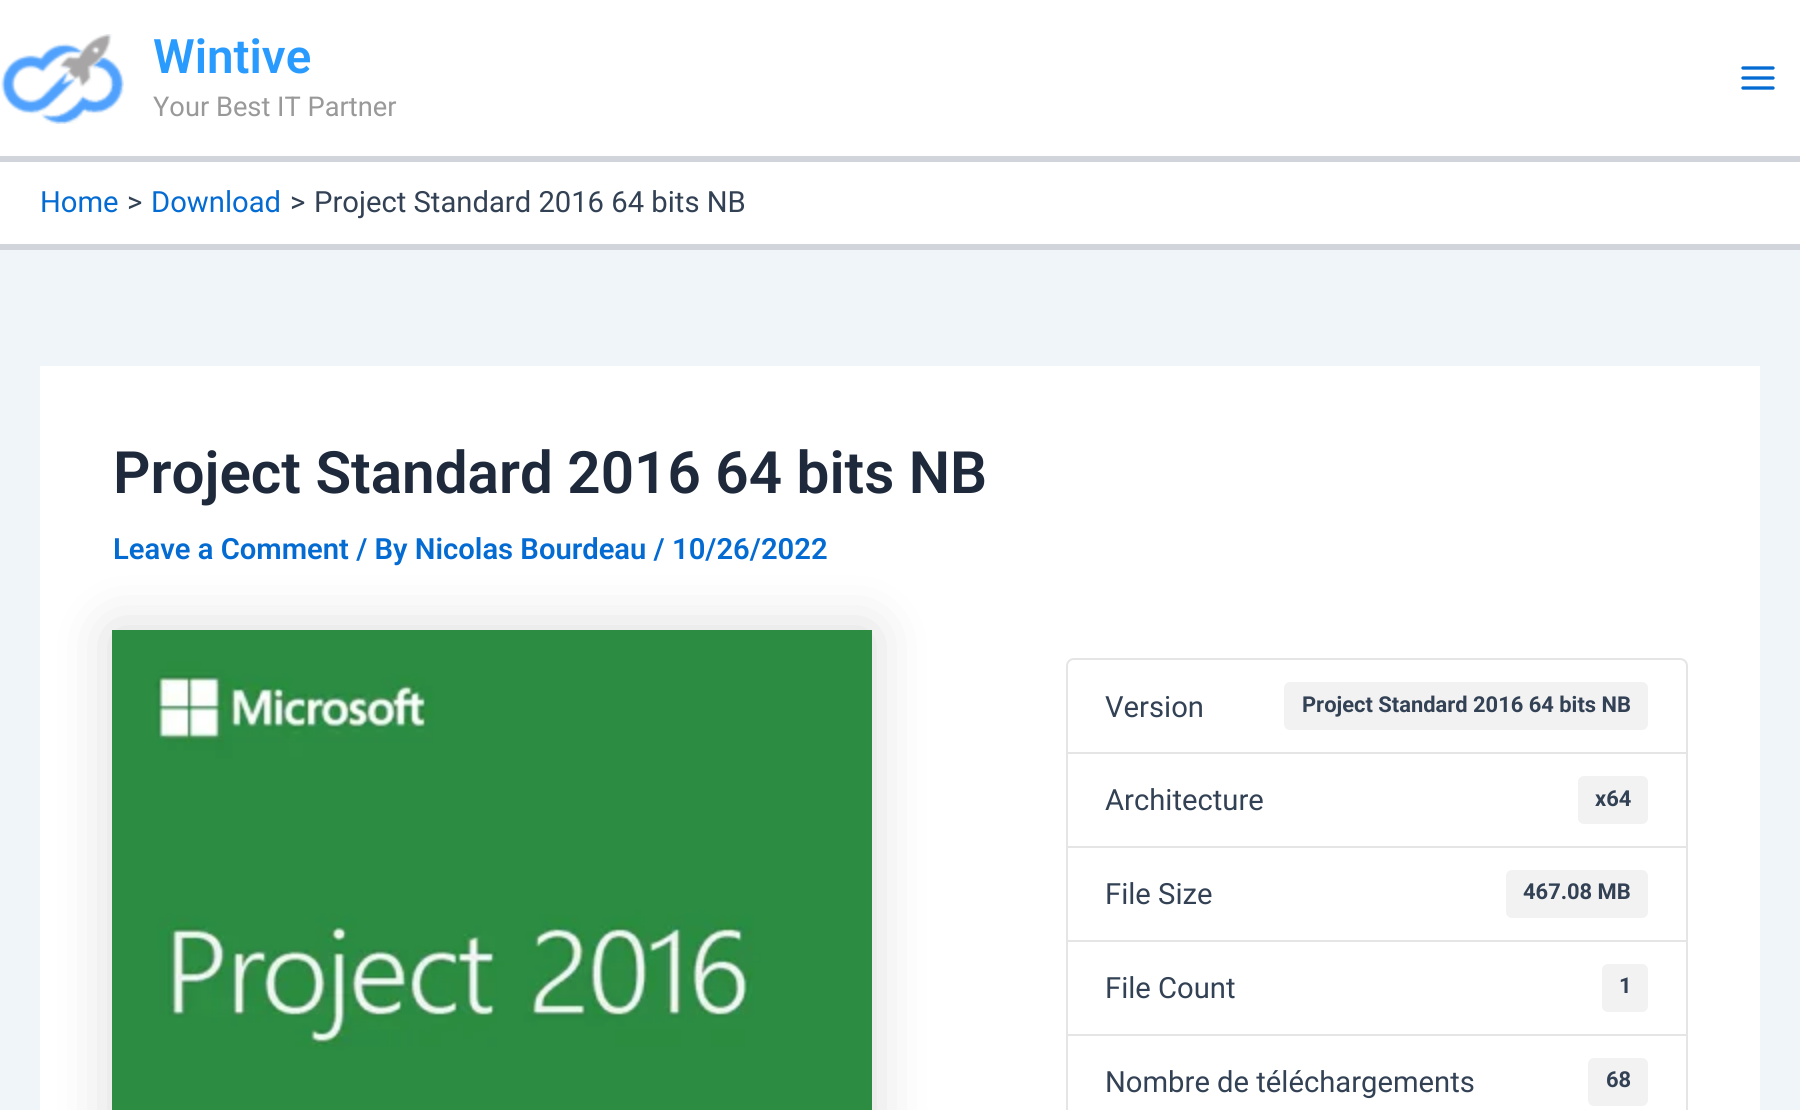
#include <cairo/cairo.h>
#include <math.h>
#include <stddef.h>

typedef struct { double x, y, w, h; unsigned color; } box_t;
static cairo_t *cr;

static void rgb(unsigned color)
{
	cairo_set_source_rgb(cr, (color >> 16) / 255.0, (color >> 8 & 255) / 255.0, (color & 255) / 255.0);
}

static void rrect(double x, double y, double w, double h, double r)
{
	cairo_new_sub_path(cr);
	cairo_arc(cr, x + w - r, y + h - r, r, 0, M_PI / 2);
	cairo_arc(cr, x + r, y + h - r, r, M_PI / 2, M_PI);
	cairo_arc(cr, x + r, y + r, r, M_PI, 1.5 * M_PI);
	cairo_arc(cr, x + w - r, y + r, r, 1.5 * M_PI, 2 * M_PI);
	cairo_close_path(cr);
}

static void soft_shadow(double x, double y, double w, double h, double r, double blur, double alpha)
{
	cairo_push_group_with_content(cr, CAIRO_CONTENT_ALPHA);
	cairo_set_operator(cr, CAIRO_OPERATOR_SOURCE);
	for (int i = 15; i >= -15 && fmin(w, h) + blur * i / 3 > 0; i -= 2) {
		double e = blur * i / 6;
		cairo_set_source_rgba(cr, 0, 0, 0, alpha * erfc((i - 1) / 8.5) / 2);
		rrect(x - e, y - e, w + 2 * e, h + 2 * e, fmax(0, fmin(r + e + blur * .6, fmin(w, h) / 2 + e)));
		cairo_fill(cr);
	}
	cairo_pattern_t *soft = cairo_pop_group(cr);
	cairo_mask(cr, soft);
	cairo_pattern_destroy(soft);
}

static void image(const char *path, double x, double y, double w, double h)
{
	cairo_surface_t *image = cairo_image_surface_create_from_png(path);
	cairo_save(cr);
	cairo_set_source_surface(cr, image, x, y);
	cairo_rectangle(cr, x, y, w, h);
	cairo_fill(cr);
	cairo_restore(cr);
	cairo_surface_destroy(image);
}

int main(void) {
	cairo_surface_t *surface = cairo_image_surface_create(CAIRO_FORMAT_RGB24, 1800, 1110);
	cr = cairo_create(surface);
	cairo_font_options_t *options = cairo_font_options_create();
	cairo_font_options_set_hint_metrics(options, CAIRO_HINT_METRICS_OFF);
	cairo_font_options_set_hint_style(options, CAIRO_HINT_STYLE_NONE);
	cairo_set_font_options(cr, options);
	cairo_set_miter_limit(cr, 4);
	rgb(0xf0f5fa);
	cairo_paint(cr);
	rgb(0xffffff);
	cairo_rectangle(cr, 0, 0, 1800, 156);
	cairo_fill(cr);
	rgb(0xd1d5db);
	cairo_rectangle(cr, 0, 156, 1800, 6);
	cairo_fill(cr);
	image("img/1.png", 1, 34, 123, 90);
	image("img/2.png", 1741, 66, 34, 24);
	{
		static const box_t items[] = {
			{0, 162, 1800, 82, 0xffffff},
			{0, 244, 1800, 6, 0xd1d5db},
			{40, 366, 1720, 744, 0xffffff},
		};
		for (size_t i = 0; i < sizeof items / sizeof *items; i++) {
			rgb(items[i].color);
			cairo_rectangle(cr, items[i].x, items[i].y, items[i].w, items[i].h);
			cairo_fill(cr);
		}
	}
	rgb(0x000000);
	soft_shadow(112, 630, 760, 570, 0, 30, 0.15);
	image("img/3.png", 112, 630, 760, 480);
	cairo_new_path(cr);
	cairo_move_to(cr, 1074, 659);
	cairo_line_to(cr, 1680, 659);
	cairo_curve_to(cr, 1684, 659, 1687, 662, 1687, 666);
	cairo_line_to(cr, 1687, 753);
	cairo_line_to(cr, 1067, 753);
	cairo_line_to(cr, 1067, 666);
	cairo_curve_to(cr, 1067, 662, 1070, 659, 1074, 659);
	cairo_close_path(cr);
	rgb(0xe5e5e5);
	cairo_stroke(cr);
	rgb(0xf2f2f2);
	rrect(1284, 682, 364, 48, 6);
	cairo_fill(cr);
	cairo_rectangle(cr, 1067, 753, 620, 94);
	rgb(0xe5e5e5);
	cairo_stroke(cr);
	rgb(0xf2f2f2);
	rrect(1578, 776, 70, 48, 6);
	cairo_fill(cr);
	cairo_rectangle(cr, 1067, 847, 620, 94);
	rgb(0xe5e5e5);
	cairo_stroke(cr);
	rgb(0xf2f2f2);
	rrect(1506, 870, 142, 48, 6);
	cairo_fill(cr);
	cairo_rectangle(cr, 1067, 941, 620, 94);
	rgb(0xe5e5e5);
	cairo_stroke(cr);
	rgb(0xf2f2f2);
	rrect(1602, 964, 46, 48, 6);
	cairo_fill(cr);
	cairo_rectangle(cr, 1067, 1035, 620, 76);
	rgb(0xe5e5e5);
	cairo_stroke(cr);
	rgb(0xf2f2f2);
	rrect(1588, 1058, 60, 48, 6);
	cairo_fill(cr);
	cairo_select_font_face(cr, "Roboto SemiBold", CAIRO_FONT_SLANT_NORMAL, CAIRO_FONT_WEIGHT_NORMAL);
	cairo_set_font_size(cr, 47.5);
	rgb(0x299bff);
	cairo_move_to(cr, 153, 73);
	cairo_show_text(cr, "Wintive");
	cairo_select_font_face(cr, "Roboto", CAIRO_FONT_SLANT_NORMAL, CAIRO_FONT_WEIGHT_NORMAL);
	cairo_set_font_size(cr, 27.25);
	rgb(0x999999);
	cairo_move_to(cr, 153, 116);
	cairo_show_text(cr, "Your Best IT Partner");
	cairo_set_font_size(cr, 29.2);
	rgb(0x046bd2);
	cairo_move_to(cr, 40, 212);
	cairo_show_text(cr, "Home");
	rgb(0x334155);
	cairo_move_to(cr, 127, 212);
	cairo_show_text(cr, ">");
	rgb(0x046bd2);
	cairo_move_to(cr, 151, 212);
	cairo_show_text(cr, "Download");
	rgb(0x334155);
	cairo_move_to(cr, 290, 212);
	cairo_show_text(cr, ">");
	cairo_move_to(cr, 314, 212);
	cairo_show_text(cr, "Project Standard 2016 64 bits NB");
	cairo_select_font_face(cr, "Roboto SemiBold", CAIRO_FONT_SLANT_NORMAL, CAIRO_FONT_WEIGHT_NORMAL);
	cairo_set_font_size(cr, 58.4);
	rgb(0x1e293b);
	cairo_move_to(cr, 113, 493);
	cairo_show_text(cr, "Project Standard 2016 64 bits NB");
	cairo_set_font_size(cr, 29.2);
	rgb(0x046bd2);
	cairo_move_to(cr, 113, 559);
	cairo_show_text(cr, "Leave a Comment / By Nicolas Bourdeau / 10/26/2022");
	cairo_select_font_face(cr, "Roboto", CAIRO_FONT_SLANT_NORMAL, CAIRO_FONT_WEIGHT_NORMAL);
	rgb(0x334155);
	cairo_move_to(cr, 1105, 717);
	cairo_show_text(cr, "Version");
	cairo_select_font_face(cr, "Roboto", CAIRO_FONT_SLANT_NORMAL, CAIRO_FONT_WEIGHT_BOLD);
	cairo_set_font_size(cr, 21.9);
	cairo_move_to(cr, 1302, 712);
	cairo_show_text(cr, "Project Standard 2016 64 bits NB");
	cairo_select_font_face(cr, "Roboto", CAIRO_FONT_SLANT_NORMAL, CAIRO_FONT_WEIGHT_NORMAL);
	cairo_set_font_size(cr, 29.2);
	cairo_move_to(cr, 1105, 810);
	cairo_show_text(cr, "Architecture");
	cairo_select_font_face(cr, "Roboto", CAIRO_FONT_SLANT_NORMAL, CAIRO_FONT_WEIGHT_BOLD);
	cairo_set_font_size(cr, 21.9);
	cairo_move_to(cr, 1595, 806);
	cairo_show_text(cr, "x64");
	cairo_select_font_face(cr, "Roboto", CAIRO_FONT_SLANT_NORMAL, CAIRO_FONT_WEIGHT_NORMAL);
	cairo_set_font_size(cr, 29.2);
	cairo_move_to(cr, 1105, 904);
	cairo_show_text(cr, "File Size");
	cairo_select_font_face(cr, "Roboto", CAIRO_FONT_SLANT_NORMAL, CAIRO_FONT_WEIGHT_BOLD);
	cairo_set_font_size(cr, 21.9);
	cairo_move_to(cr, 1523, 899);
	cairo_show_text(cr, "467.08 MB");
	cairo_select_font_face(cr, "Roboto", CAIRO_FONT_SLANT_NORMAL, CAIRO_FONT_WEIGHT_NORMAL);
	cairo_set_font_size(cr, 29.2);
	cairo_move_to(cr, 1105, 998);
	cairo_show_text(cr, "File Count");
	cairo_select_font_face(cr, "Roboto", CAIRO_FONT_SLANT_NORMAL, CAIRO_FONT_WEIGHT_BOLD);
	cairo_set_font_size(cr, 21.9);
	cairo_move_to(cr, 1619, 993);
	cairo_show_text(cr, "1");
	cairo_select_font_face(cr, "Roboto", CAIRO_FONT_SLANT_NORMAL, CAIRO_FONT_WEIGHT_NORMAL);
	cairo_set_font_size(cr, 29.2);
	cairo_move_to(cr, 1105, 1092);
	cairo_show_text(cr, "Nombre de téléchargements");
	cairo_select_font_face(cr, "Roboto", CAIRO_FONT_SLANT_NORMAL, CAIRO_FONT_WEIGHT_BOLD);
	cairo_set_font_size(cr, 21.9);
	cairo_move_to(cr, 1606, 1087);
	cairo_show_text(cr, "68");
	cairo_surface_write_to_png(surface, "page.png");
	cairo_font_options_destroy(options);
	cairo_destroy(cr);
	cairo_surface_destroy(surface);
	return 0;
}
